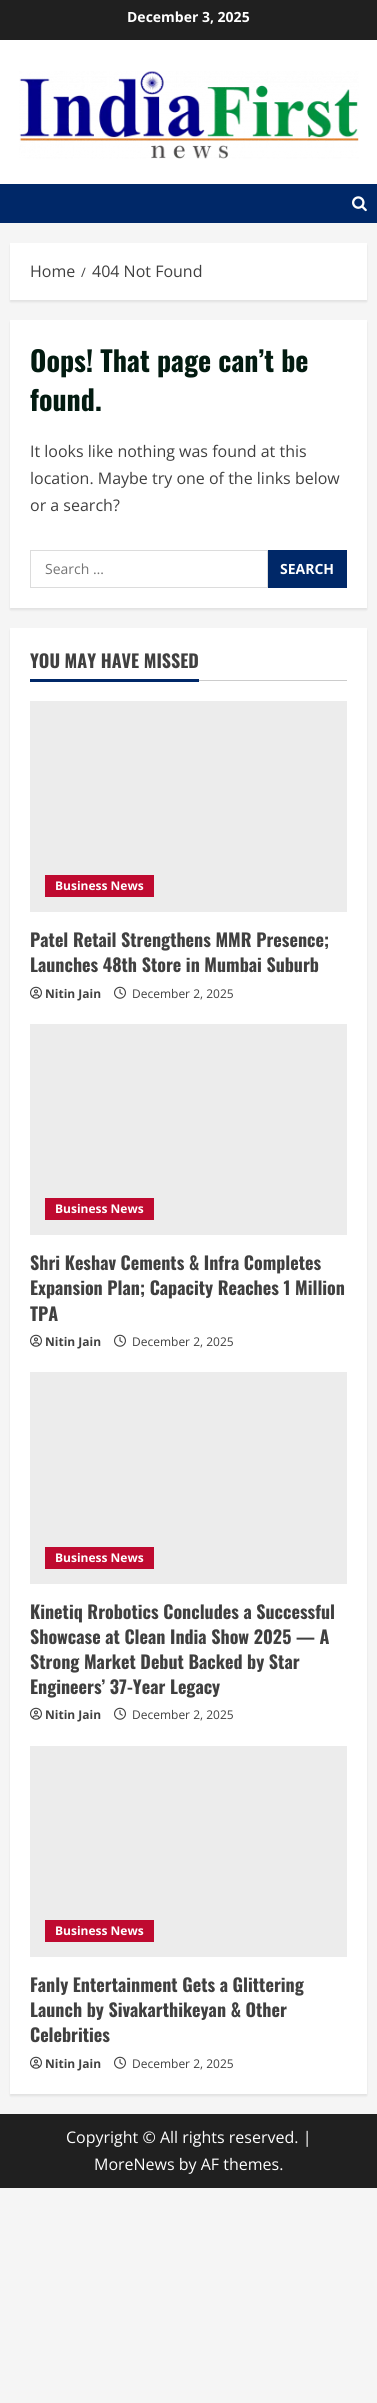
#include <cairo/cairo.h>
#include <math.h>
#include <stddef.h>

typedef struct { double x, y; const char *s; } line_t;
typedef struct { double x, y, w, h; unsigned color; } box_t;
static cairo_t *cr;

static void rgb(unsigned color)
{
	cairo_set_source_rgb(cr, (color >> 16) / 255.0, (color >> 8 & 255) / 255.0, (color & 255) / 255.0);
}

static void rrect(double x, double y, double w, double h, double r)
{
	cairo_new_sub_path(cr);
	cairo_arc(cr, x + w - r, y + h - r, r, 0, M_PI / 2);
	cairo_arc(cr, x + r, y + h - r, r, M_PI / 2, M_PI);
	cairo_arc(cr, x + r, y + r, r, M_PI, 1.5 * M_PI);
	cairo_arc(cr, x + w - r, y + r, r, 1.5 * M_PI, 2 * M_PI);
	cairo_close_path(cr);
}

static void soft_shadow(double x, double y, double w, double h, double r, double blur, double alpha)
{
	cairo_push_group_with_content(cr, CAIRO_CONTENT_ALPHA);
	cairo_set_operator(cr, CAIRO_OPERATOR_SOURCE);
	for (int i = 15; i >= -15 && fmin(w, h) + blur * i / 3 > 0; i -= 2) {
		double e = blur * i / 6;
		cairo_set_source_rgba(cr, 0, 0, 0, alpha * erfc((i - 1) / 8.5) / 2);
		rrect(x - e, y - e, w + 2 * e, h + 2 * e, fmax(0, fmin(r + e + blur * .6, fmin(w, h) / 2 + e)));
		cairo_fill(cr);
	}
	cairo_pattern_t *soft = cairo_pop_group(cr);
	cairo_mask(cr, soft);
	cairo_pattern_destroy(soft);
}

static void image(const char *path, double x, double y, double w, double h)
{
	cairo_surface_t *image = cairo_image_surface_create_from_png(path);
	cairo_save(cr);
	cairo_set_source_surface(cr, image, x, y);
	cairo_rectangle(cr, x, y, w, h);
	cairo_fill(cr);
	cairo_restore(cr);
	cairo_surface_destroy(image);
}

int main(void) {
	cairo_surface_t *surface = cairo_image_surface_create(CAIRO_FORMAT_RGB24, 377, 2403);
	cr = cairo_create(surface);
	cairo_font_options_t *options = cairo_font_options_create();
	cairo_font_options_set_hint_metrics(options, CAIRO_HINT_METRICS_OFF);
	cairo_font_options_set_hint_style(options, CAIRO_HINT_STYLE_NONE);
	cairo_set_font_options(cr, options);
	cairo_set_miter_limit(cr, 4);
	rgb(0xf5f5f5);
	cairo_paint(cr);
	rgb(0x202020);
	cairo_rectangle(cr, 0, 0, 377, 40);
	cairo_fill(cr);
	rgb(0xffffff);
	cairo_rectangle(cr, 0, 40, 377, 144);
	cairo_fill(cr);
	image("img/1.png", 19, 71, 340, 88);
	rgb(0x002868);
	cairo_rectangle(cr, 0, 184, 377, 39);
	cairo_fill(cr);
	image("img/2.png", 352, 196, 15, 16);
	rgb(0x000000);
	soft_shadow(10, 245, 357, 57, 0, 1, 0.08);
	rgb(0xffffff);
	cairo_rectangle(cr, 10, 243, 357, 57);
	cairo_fill(cr);
	rgb(0x000000);
	soft_shadow(10, 322, 357, 288, 0, 1, 0.08);
	rgb(0xffffff);
	cairo_rectangle(cr, 10, 320, 357, 288);
	cairo_fill(cr);
	cairo_rectangle(cr, 30.5, 550.5, 237, 37);
	rgb(0xdcdcdc);
	cairo_set_line_width(cr, 1);
	cairo_stroke(cr);
	rgb(0x002868);
	cairo_rectangle(cr, 268, 550, 79, 38);
	cairo_fill(cr);
	rgb(0x000000);
	soft_shadow(10, 630, 357, 1466, 0, 1, 0.08);
	{
		static const box_t items[] = {
			{10, 628, 357, 1466, 0xffffff},
			{199, 680, 148, 1, 0xcccccc},
			{30, 679, 169, 3, 0x002868},
			{30, 701, 317, 211, 0xececec},
			{45, 875, 109, 22, 0xbf0a30},
		};
		for (size_t i = 0; i < sizeof items / sizeof *items; i++) {
			rgb(items[i].color);
			cairo_rectangle(cr, items[i].x, items[i].y, items[i].w, items[i].h);
			cairo_fill(cr);
		}
	}
	image("img/3.png", 30, 986, 12, 13);
	image("img/4.png", 114, 986, 12, 13);
	rgb(0xececec);
	cairo_rectangle(cr, 30, 1024, 317, 211);
	cairo_fill(cr);
	rgb(0xbf0a30);
	cairo_rectangle(cr, 45, 1198, 109, 22);
	cairo_fill(cr);
	image("img/3.png", 30, 1334, 12, 13);
	image("img/4.png", 114, 1334, 12, 13);
	rgb(0xececec);
	cairo_rectangle(cr, 30, 1372, 317, 212);
	cairo_fill(cr);
	rgb(0xbf0a30);
	cairo_rectangle(cr, 45, 1547, 109, 22);
	cairo_fill(cr);
	image("img/3.png", 30, 1707, 12, 13);
	image("img/4.png", 114, 1707, 12, 13);
	rgb(0xececec);
	cairo_rectangle(cr, 30, 1746, 317, 211);
	cairo_fill(cr);
	rgb(0xbf0a30);
	cairo_rectangle(cr, 45, 1920, 109, 22);
	cairo_fill(cr);
	image("img/3.png", 30, 2056, 12, 13);
	image("img/4.png", 114, 2056, 12, 13);
	rgb(0x202020);
	cairo_rectangle(cr, 0, 2114, 377, 74);
	cairo_fill(cr);
	cairo_select_font_face(cr, "Open Sans", CAIRO_FONT_SLANT_NORMAL, CAIRO_FONT_WEIGHT_BOLD);
	cairo_set_font_size(cr, 14);
	rgb(0xffffff);
	cairo_move_to(cr, 127, 22);
	cairo_show_text(cr, "December 3, 2025");
	cairo_select_font_face(cr, "Open Sans", CAIRO_FONT_SLANT_NORMAL, CAIRO_FONT_WEIGHT_NORMAL);
	cairo_set_font_size(cr, 16);
	rgb(0x404040);
	cairo_move_to(cr, 30, 277);
	cairo_show_text(cr, "Home");
	cairo_set_font_size(cr, 13);
	cairo_move_to(cr, 81, 277);
	cairo_show_text(cr, "/");
	cairo_set_font_size(cr, 16);
	cairo_move_to(cr, 92, 277);
	cairo_show_text(cr, "404 Not Found");
	cairo_select_font_face(cr, "Oswald", CAIRO_FONT_SLANT_NORMAL, CAIRO_FONT_WEIGHT_BOLD);
	cairo_set_font_size(cr, 28);
	rgb(0x031b11);
	cairo_move_to(cr, 30, 372);
	cairo_show_text(cr, "Oops! That page can’t be");
	cairo_move_to(cr, 30, 411);
	cairo_show_text(cr, "found.");
	cairo_select_font_face(cr, "Open Sans", CAIRO_FONT_SLANT_NORMAL, CAIRO_FONT_WEIGHT_NORMAL);
	cairo_set_font_size(cr, 16);
	rgb(0x404040);
	{
		static const line_t items[] = {
			{30, 457, "It looks like nothing was found at this"},
			{30, 484, "location. Maybe try one of the links below"},
			{30, 511, "or a search?"},
		};
		for (size_t i = 0; i < sizeof items / sizeof *items; i++) {
			cairo_move_to(cr, items[i].x, items[i].y);
			cairo_show_text(cr, items[i].s);
		}
	}
	cairo_set_font_size(cr, 14);
	rgb(0x757575);
	cairo_move_to(cr, 45, 574);
	cairo_show_text(cr, "Search …");
	cairo_select_font_face(cr, "Open Sans", CAIRO_FONT_SLANT_NORMAL, CAIRO_FONT_WEIGHT_BOLD);
	rgb(0xffffff);
	cairo_move_to(cr, 280, 574);
	cairo_show_text(cr, "SEARCH");
	cairo_select_font_face(cr, "Oswald", CAIRO_FONT_SLANT_NORMAL, CAIRO_FONT_WEIGHT_BOLD);
	cairo_set_font_size(cr, 18);
	rgb(0x404040);
	cairo_move_to(cr, 30, 668);
	cairo_show_text(cr, "YOU MAY HAVE MISSED");
	cairo_select_font_face(cr, "Open Sans", CAIRO_FONT_SLANT_NORMAL, CAIRO_FONT_WEIGHT_BOLD);
	cairo_set_font_size(cr, 12);
	rgb(0xffffff);
	cairo_move_to(cr, 55, 890);
	cairo_show_text(cr, "Business News");
	cairo_select_font_face(cr, "Oswald", CAIRO_FONT_SLANT_NORMAL, CAIRO_FONT_WEIGHT_BOLD);
	cairo_set_font_size(cr, 18);
	rgb(0x404040);
	cairo_move_to(cr, 30, 947);
	cairo_show_text(cr, "Patel Retail Strengthens MMR Presence;");
	cairo_move_to(cr, 30, 972);
	cairo_show_text(cr, "Launches 48th Store in Mumbai Suburb");
	cairo_select_font_face(cr, "Open Sans", CAIRO_FONT_SLANT_NORMAL, CAIRO_FONT_WEIGHT_BOLD);
	cairo_set_font_size(cr, 12);
	cairo_move_to(cr, 45, 998);
	cairo_show_text(cr, "Nitin Jain");
	cairo_select_font_face(cr, "Open Sans", CAIRO_FONT_SLANT_NORMAL, CAIRO_FONT_WEIGHT_NORMAL);
	cairo_move_to(cr, 132, 998);
	cairo_show_text(cr, "December 2, 2025");
	cairo_select_font_face(cr, "Open Sans", CAIRO_FONT_SLANT_NORMAL, CAIRO_FONT_WEIGHT_BOLD);
	rgb(0xffffff);
	cairo_move_to(cr, 55, 1213);
	cairo_show_text(cr, "Business News");
	cairo_select_font_face(cr, "Oswald", CAIRO_FONT_SLANT_NORMAL, CAIRO_FONT_WEIGHT_BOLD);
	cairo_set_font_size(cr, 18);
	rgb(0x404040);
	{
		static const line_t items[] = {
			{30, 1270, "Shri Keshav Cements & Infra Completes"},
			{30, 1295, "Expansion Plan; Capacity Reaches 1 Million"},
			{30, 1321, "TPA"},
		};
		for (size_t i = 0; i < sizeof items / sizeof *items; i++) {
			cairo_move_to(cr, items[i].x, items[i].y);
			cairo_show_text(cr, items[i].s);
		}
	}
	cairo_select_font_face(cr, "Open Sans", CAIRO_FONT_SLANT_NORMAL, CAIRO_FONT_WEIGHT_BOLD);
	cairo_set_font_size(cr, 12);
	cairo_move_to(cr, 45, 1346);
	cairo_show_text(cr, "Nitin Jain");
	cairo_select_font_face(cr, "Open Sans", CAIRO_FONT_SLANT_NORMAL, CAIRO_FONT_WEIGHT_NORMAL);
	cairo_move_to(cr, 132, 1346);
	cairo_show_text(cr, "December 2, 2025");
	cairo_select_font_face(cr, "Open Sans", CAIRO_FONT_SLANT_NORMAL, CAIRO_FONT_WEIGHT_BOLD);
	rgb(0xffffff);
	cairo_move_to(cr, 55, 1562);
	cairo_show_text(cr, "Business News");
	cairo_select_font_face(cr, "Oswald", CAIRO_FONT_SLANT_NORMAL, CAIRO_FONT_WEIGHT_BOLD);
	cairo_set_font_size(cr, 18);
	rgb(0x404040);
	{
		static const line_t items[] = {
			{30, 1619, "Kinetiq Rrobotics Concludes a Successful"},
			{30, 1644, "Showcase at Clean India Show 2025 — A"},
			{30, 1669, "Strong Market Debut Backed by Star"},
			{30, 1694, "Engineers’ 37-Year Legacy"},
		};
		for (size_t i = 0; i < sizeof items / sizeof *items; i++) {
			cairo_move_to(cr, items[i].x, items[i].y);
			cairo_show_text(cr, items[i].s);
		}
	}
	cairo_select_font_face(cr, "Open Sans", CAIRO_FONT_SLANT_NORMAL, CAIRO_FONT_WEIGHT_BOLD);
	cairo_set_font_size(cr, 12);
	cairo_move_to(cr, 45, 1719);
	cairo_show_text(cr, "Nitin Jain");
	cairo_select_font_face(cr, "Open Sans", CAIRO_FONT_SLANT_NORMAL, CAIRO_FONT_WEIGHT_NORMAL);
	cairo_move_to(cr, 132, 1719);
	cairo_show_text(cr, "December 2, 2025");
	cairo_select_font_face(cr, "Open Sans", CAIRO_FONT_SLANT_NORMAL, CAIRO_FONT_WEIGHT_BOLD);
	rgb(0xffffff);
	cairo_move_to(cr, 55, 1935);
	cairo_show_text(cr, "Business News");
	cairo_select_font_face(cr, "Oswald", CAIRO_FONT_SLANT_NORMAL, CAIRO_FONT_WEIGHT_BOLD);
	cairo_set_font_size(cr, 18);
	rgb(0x404040);
	{
		static const line_t items[] = {
			{30, 1992, "Fanly Entertainment Gets a Glittering"},
			{30, 2017, "Launch by Sivakarthikeyan & Other"},
			{30, 2042, "Celebrities"},
		};
		for (size_t i = 0; i < sizeof items / sizeof *items; i++) {
			cairo_move_to(cr, items[i].x, items[i].y);
			cairo_show_text(cr, items[i].s);
		}
	}
	cairo_select_font_face(cr, "Open Sans", CAIRO_FONT_SLANT_NORMAL, CAIRO_FONT_WEIGHT_BOLD);
	cairo_set_font_size(cr, 12);
	cairo_move_to(cr, 45, 2068);
	cairo_show_text(cr, "Nitin Jain");
	cairo_select_font_face(cr, "Open Sans", CAIRO_FONT_SLANT_NORMAL, CAIRO_FONT_WEIGHT_NORMAL);
	cairo_move_to(cr, 132, 2068);
	cairo_show_text(cr, "December 2, 2025");
	cairo_set_font_size(cr, 16);
	rgb(0xffffff);
	cairo_move_to(cr, 66, 2143);
	cairo_show_text(cr, "Copyright © All rights reserved. |");
	cairo_move_to(cr, 94, 2170);
	cairo_show_text(cr, "MoreNews by AF themes.");
	cairo_surface_write_to_png(surface, "page.png");
	cairo_font_options_destroy(options);
	cairo_destroy(cr);
	cairo_surface_destroy(surface);
	return 0;
}
